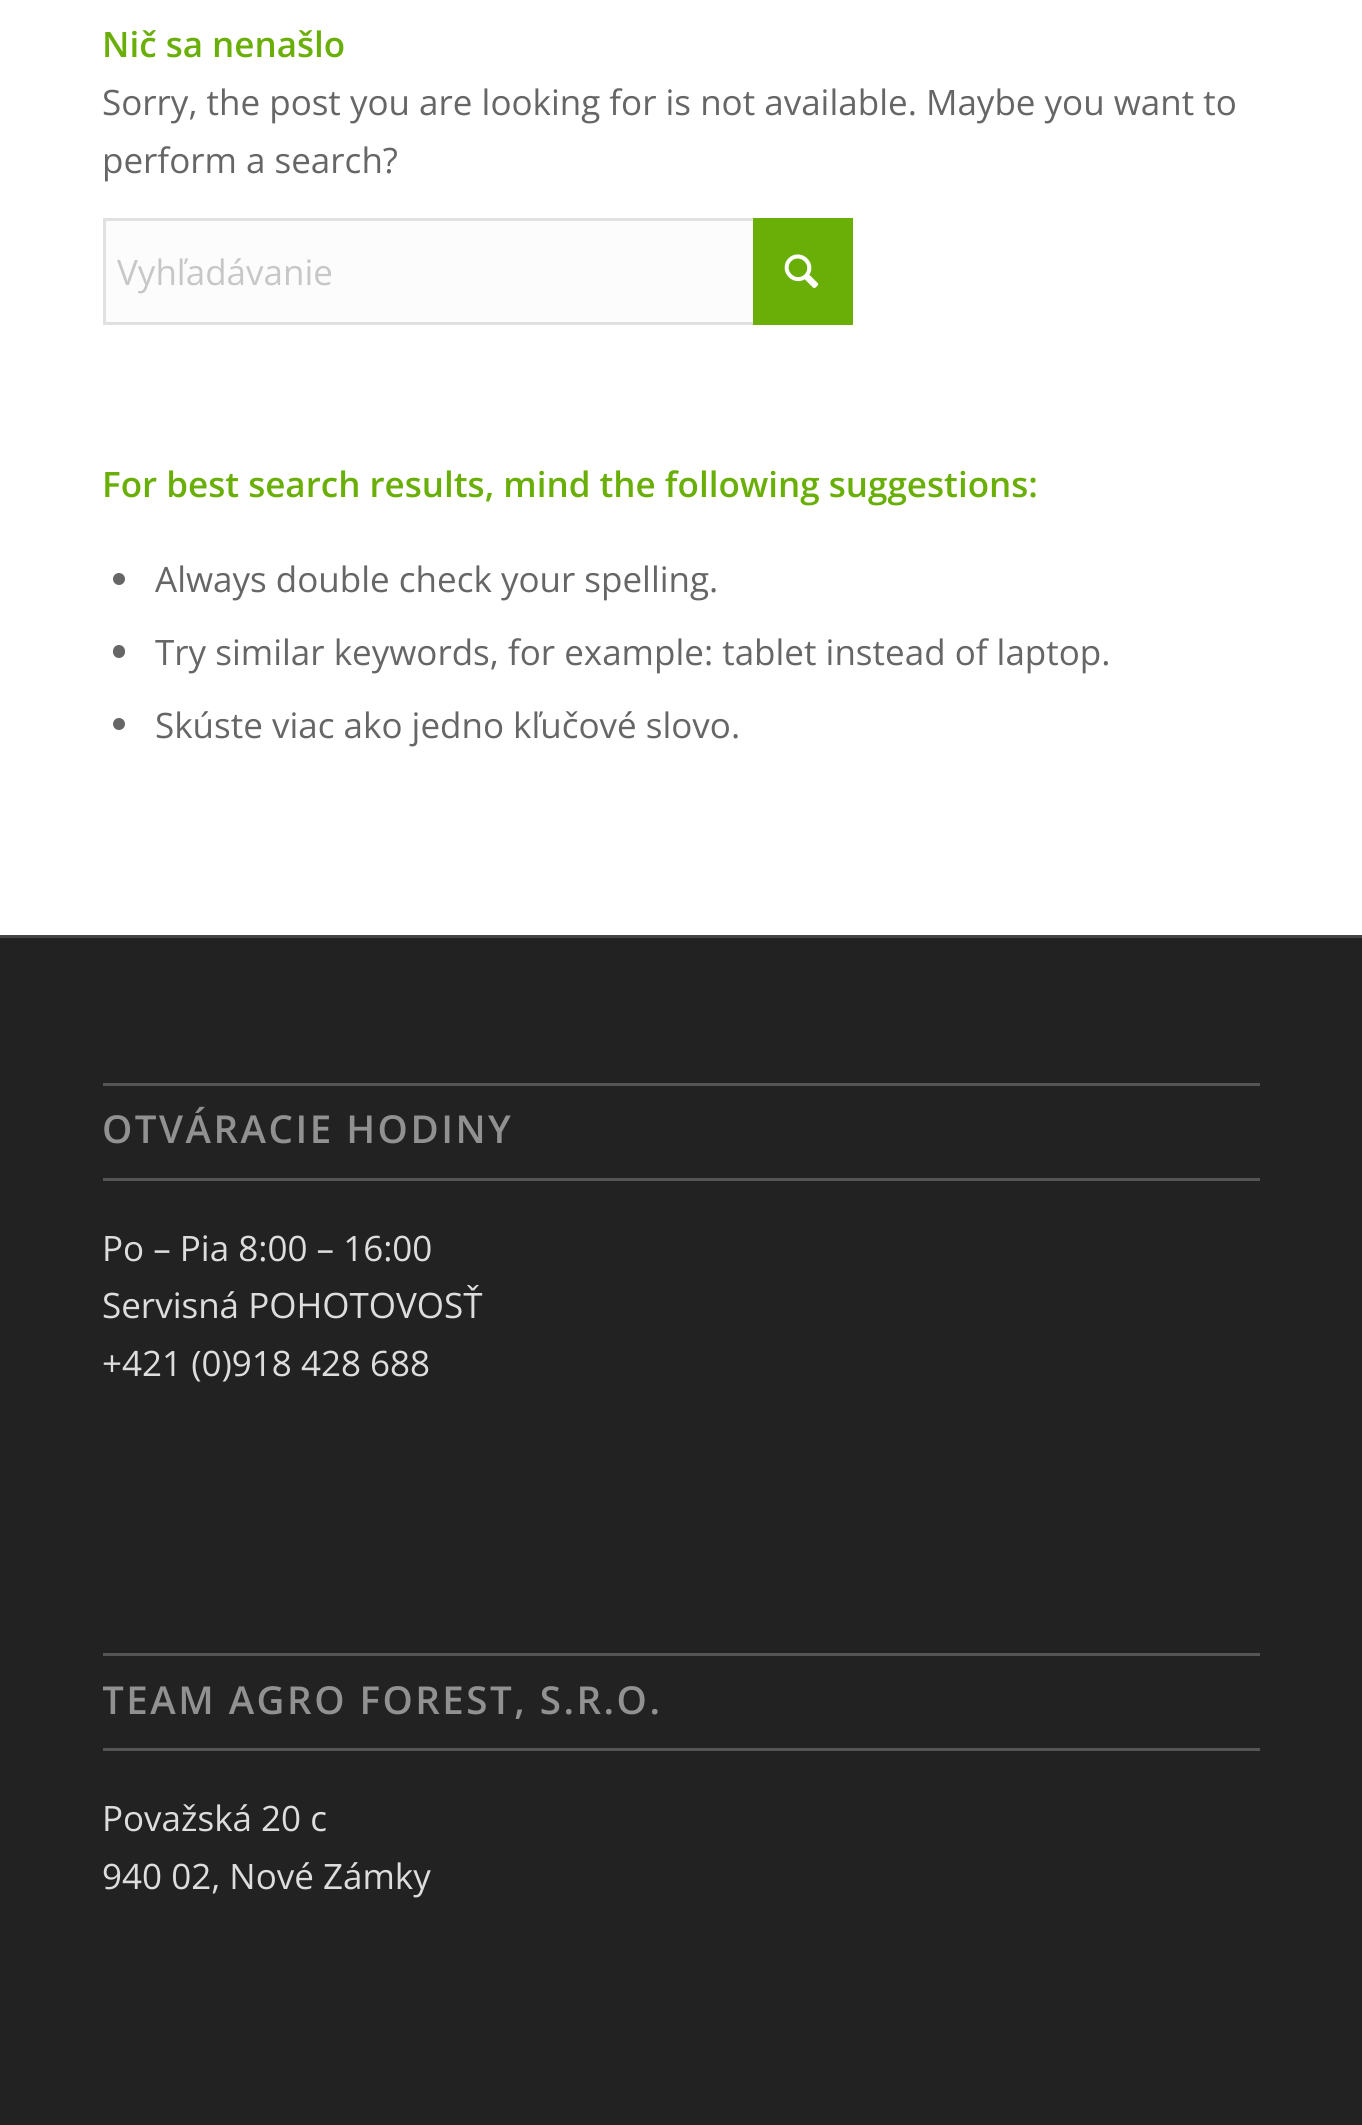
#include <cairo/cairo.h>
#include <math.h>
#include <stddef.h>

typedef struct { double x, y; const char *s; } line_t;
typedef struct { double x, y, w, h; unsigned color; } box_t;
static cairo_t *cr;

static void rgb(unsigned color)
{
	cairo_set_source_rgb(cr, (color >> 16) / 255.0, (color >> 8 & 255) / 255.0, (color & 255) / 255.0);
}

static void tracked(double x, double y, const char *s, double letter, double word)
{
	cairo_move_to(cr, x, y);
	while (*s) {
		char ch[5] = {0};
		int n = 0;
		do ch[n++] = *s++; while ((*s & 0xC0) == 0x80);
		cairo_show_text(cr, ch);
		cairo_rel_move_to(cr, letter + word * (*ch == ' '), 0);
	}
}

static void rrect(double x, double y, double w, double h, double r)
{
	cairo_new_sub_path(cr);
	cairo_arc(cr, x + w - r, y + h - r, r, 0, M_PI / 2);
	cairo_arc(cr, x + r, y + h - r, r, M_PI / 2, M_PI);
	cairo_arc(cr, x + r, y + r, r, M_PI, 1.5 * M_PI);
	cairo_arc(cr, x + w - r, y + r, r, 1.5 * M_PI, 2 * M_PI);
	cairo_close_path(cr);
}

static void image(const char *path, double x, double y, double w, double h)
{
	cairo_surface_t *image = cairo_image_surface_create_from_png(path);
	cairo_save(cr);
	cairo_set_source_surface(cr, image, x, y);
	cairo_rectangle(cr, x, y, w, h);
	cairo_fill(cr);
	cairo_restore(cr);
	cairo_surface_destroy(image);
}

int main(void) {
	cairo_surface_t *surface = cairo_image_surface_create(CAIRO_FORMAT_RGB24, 1362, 2125);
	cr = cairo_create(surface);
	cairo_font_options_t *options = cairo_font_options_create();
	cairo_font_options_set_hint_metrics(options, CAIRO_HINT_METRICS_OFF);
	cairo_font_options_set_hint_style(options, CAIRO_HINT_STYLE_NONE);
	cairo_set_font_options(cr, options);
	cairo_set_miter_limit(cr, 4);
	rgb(0xffffff);
	cairo_paint(cr);
	rgb(0xfcfcfc);
	cairo_rectangle(cr, 106, 221, 647, 101);
	cairo_fill(cr);
	cairo_rectangle(cr, 104.5, 219.5, 747, 104);
	rgb(0xe1e1e1);
	cairo_set_line_width(cr, 3);
	cairo_stroke(cr);
	rgb(0x6aaf08);
	cairo_rectangle(cr, 753, 218, 100, 107);
	cairo_fill(cr);
	image("img/1.png", 784, 254, 35, 35);
	rgb(0x666666);
	cairo_arc(cr, 119, 579, 6, 0, 2 * M_PI);
	cairo_fill(cr);
	rrect(113, 645, 12, 13, 6);
	cairo_fill(cr);
	cairo_arc(cr, 119, 724, 6, 0, 2 * M_PI);
	cairo_fill(cr);
	{
		static const box_t items[] = {
			{0, 938, 1362, 1187, 0x222222},
			{0, 935, 1362, 3, 0x444444},
			{103, 1083, 1157, 3, 0x555555},
			{103, 1178, 1157, 3, 0x555555},
			{103, 1653, 1157, 3, 0x555555},
			{103, 1748, 1157, 3, 0x555555},
		};
		for (size_t i = 0; i < sizeof items / sizeof *items; i++) {
			rgb(items[i].color);
			cairo_rectangle(cr, items[i].x, items[i].y, items[i].w, items[i].h);
			cairo_fill(cr);
		}
	}
	cairo_select_font_face(cr, "Open Sans SemiBold", CAIRO_FONT_SLANT_NORMAL, CAIRO_FONT_WEIGHT_NORMAL);
	cairo_set_font_size(cr, 35);
	rgb(0x6aaf08);
	cairo_move_to(cr, 102, 57);
	cairo_show_text(cr, "Nič sa nenašlo");
	cairo_select_font_face(cr, "Open Sans", CAIRO_FONT_SLANT_NORMAL, CAIRO_FONT_WEIGHT_NORMAL);
	rgb(0x666666);
	cairo_move_to(cr, 102, 115);
	cairo_show_text(cr, "Sorry, the post you are looking for is not available. Maybe you want to");
	cairo_move_to(cr, 102, 173);
	cairo_show_text(cr, "perform a search?");
	rgb(0xc7c7c7);
	cairo_move_to(cr, 117, 285);
	cairo_show_text(cr, "Vyhľadávanie");
	cairo_select_font_face(cr, "Open Sans SemiBold", CAIRO_FONT_SLANT_NORMAL, CAIRO_FONT_WEIGHT_NORMAL);
	rgb(0x6aaf08);
	cairo_move_to(cr, 102, 497);
	cairo_show_text(cr, "For best search results, mind the following suggestions:");
	cairo_select_font_face(cr, "Open Sans", CAIRO_FONT_SLANT_NORMAL, CAIRO_FONT_WEIGHT_NORMAL);
	rgb(0x666666);
	{
		static const line_t items[] = {
			{155, 592, "Always double check your spelling."},
			{155, 665, "Try similar keywords, for example: tablet instead of laptop."},
			{155, 738, "Skúste viac ako jedno kľučové slovo."},
		};
		for (size_t i = 0; i < sizeof items / sizeof *items; i++) {
			cairo_move_to(cr, items[i].x, items[i].y);
			cairo_show_text(cr, items[i].s);
		}
	}
	cairo_select_font_face(cr, "Open Sans SemiBold", CAIRO_FONT_SLANT_NORMAL, CAIRO_FONT_WEIGHT_NORMAL);
	cairo_set_font_size(cr, 38.5);
	rgb(0x919191);
	tracked(102, 1143, "OTVÁRACIE HODINY", 2.5, 0);
	cairo_select_font_face(cr, "Open Sans", CAIRO_FONT_SLANT_NORMAL, CAIRO_FONT_WEIGHT_NORMAL);
	cairo_set_font_size(cr, 35);
	rgb(0xdddddd);
	{
		static const line_t items[] = {
			{102, 1261, "Po – Pia 8:00 – 16:00"},
			{102, 1318, "Servisná POHOTOVOSŤ"},
			{102, 1376, "+421 (0)918 428 688"},
		};
		for (size_t i = 0; i < sizeof items / sizeof *items; i++) {
			cairo_move_to(cr, items[i].x, items[i].y);
			cairo_show_text(cr, items[i].s);
		}
	}
	cairo_save(cr);
	cairo_rectangle(cr, 103, 1620, 1157, 315);
	cairo_clip(cr);
	cairo_select_font_face(cr, "Open Sans SemiBold", CAIRO_FONT_SLANT_NORMAL, CAIRO_FONT_WEIGHT_NORMAL);
	cairo_set_font_size(cr, 38.5);
	rgb(0x919191);
	tracked(102, 1714, "TEAM AGRO FOREST, S.R.O.", 2.5, 0);
	cairo_restore(cr);
	cairo_move_to(cr, 102, 1831);
	cairo_show_text(cr, "Považská 20 c");
	cairo_move_to(cr, 102, 1889);
	cairo_show_text(cr, "940 02, Nové Zámky");
	cairo_surface_write_to_png(surface, "page.png");
	cairo_font_options_destroy(options);
	cairo_destroy(cr);
	cairo_surface_destroy(surface);
	return 0;
}
